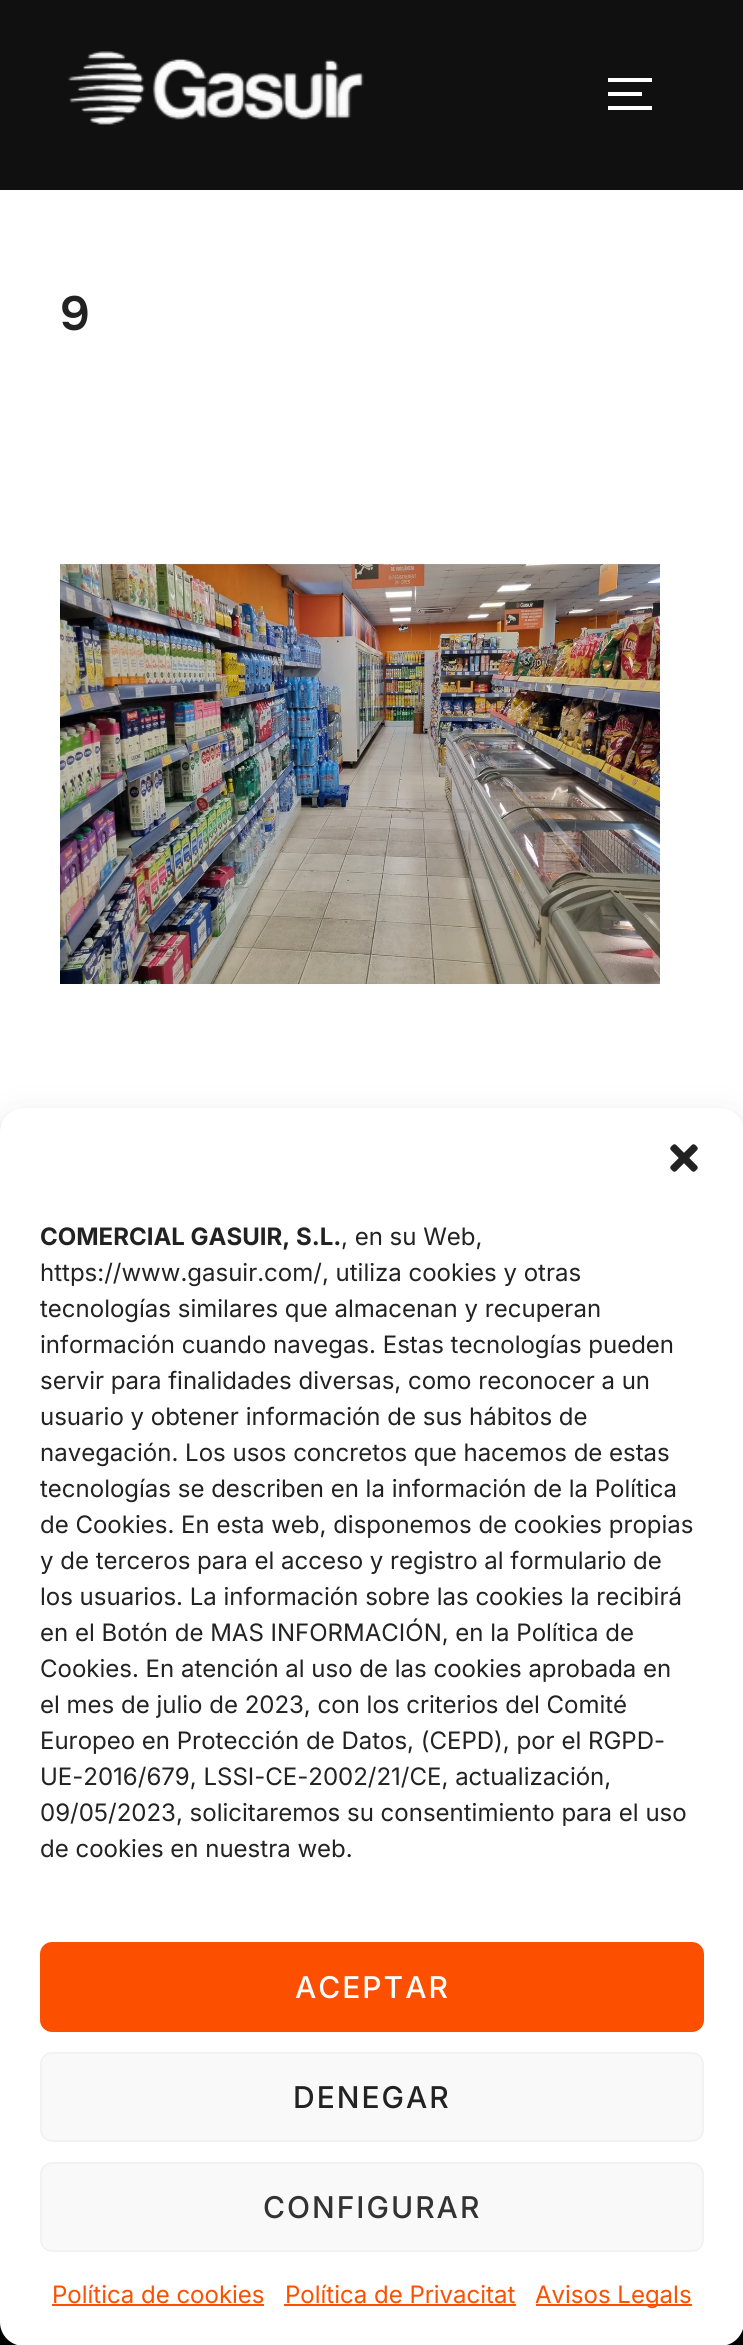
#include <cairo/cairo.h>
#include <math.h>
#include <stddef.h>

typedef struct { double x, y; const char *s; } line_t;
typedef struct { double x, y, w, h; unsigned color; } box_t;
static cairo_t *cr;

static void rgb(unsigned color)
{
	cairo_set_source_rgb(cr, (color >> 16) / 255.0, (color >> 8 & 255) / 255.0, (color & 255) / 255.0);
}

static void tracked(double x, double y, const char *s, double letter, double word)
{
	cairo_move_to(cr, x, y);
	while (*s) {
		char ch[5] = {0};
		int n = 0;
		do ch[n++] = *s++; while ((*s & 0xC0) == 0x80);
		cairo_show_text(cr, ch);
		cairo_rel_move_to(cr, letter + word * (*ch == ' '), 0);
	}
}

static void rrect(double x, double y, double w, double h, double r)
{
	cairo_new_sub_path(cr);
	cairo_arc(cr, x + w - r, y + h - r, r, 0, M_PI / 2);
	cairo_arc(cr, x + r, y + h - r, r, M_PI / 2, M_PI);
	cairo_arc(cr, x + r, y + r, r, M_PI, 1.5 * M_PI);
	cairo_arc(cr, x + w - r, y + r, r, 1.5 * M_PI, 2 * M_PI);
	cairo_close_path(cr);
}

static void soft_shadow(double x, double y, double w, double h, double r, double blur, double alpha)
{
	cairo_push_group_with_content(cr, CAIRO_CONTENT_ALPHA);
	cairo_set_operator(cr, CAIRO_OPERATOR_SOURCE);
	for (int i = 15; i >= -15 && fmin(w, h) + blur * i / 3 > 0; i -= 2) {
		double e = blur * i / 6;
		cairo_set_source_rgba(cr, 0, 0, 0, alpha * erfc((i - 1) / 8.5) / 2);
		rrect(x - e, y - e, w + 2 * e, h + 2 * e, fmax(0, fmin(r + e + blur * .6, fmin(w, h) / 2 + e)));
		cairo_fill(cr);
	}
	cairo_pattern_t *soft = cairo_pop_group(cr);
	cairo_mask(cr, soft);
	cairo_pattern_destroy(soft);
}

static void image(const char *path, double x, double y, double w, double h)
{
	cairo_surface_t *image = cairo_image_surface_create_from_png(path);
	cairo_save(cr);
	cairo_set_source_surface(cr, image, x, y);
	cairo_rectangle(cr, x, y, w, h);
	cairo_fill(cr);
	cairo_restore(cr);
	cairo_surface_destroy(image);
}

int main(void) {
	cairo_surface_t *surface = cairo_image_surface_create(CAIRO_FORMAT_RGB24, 743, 2345);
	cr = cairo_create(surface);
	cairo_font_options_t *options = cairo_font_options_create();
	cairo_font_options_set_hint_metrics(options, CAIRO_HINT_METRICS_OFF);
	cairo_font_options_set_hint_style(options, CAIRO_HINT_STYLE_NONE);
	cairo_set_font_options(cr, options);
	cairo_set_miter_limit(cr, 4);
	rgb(0xffffff);
	cairo_paint(cr);
	rgb(0x101010);
	cairo_rectangle(cr, 0, 0, 743, 190);
	cairo_fill(cr);
	image("img/1.png", 68, 51, 296, 74);
	{
		static const box_t items[] = {
			{608, 78, 44, 4, 0xffffff},
			{608, 92, 34, 4, 0xffffff},
			{608, 106, 44, 4, 0xffffff},
		};
		for (size_t i = 0; i < sizeof items / sizeof *items; i++) {
			rgb(items[i].color);
			cairo_rectangle(cr, items[i].x, items[i].y, items[i].w, items[i].h);
			cairo_fill(cr);
		}
	}
	image("img/2.png", 60, 563, 600, 423);
	rgb(0x000000);
	cairo_rectangle(cr, 0, 2322, 743, 23);
	cairo_fill(cr);
	rgb(0x000000);
	soft_shadow(0, 1120, 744, 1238, 24, 6, 0.23);
	soft_shadow(0, 1128, 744, 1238, 24, 20, 0.19);
	rgb(0xffffff);
	rrect(0, 1108, 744, 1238, 24);
	cairo_fill(cr);
	image("img/3.png", 670, 1144, 28, 28);
	rgb(0xfc5000);
	rrect(41, 1943, 662, 88, 11);
	cairo_fill_preserve(cr);
	cairo_stroke(cr);
	rgb(0xf9f9f9);
	rrect(41, 2053, 662, 88, 11);
	cairo_fill_preserve(cr);
	rgb(0xf2f2f2);
	cairo_stroke(cr);
	rgb(0xf9f9f9);
	rrect(41, 2163, 662, 88, 11);
	cairo_fill_preserve(cr);
	rgb(0xf2f2f2);
	cairo_stroke(cr);
	{
		static const box_t items[] = {
			{52, 2304, 212, 2, 0xfc5000},
			{284, 2304, 232, 2, 0xfc5000},
			{536, 2304, 156, 2, 0xfc5000},
		};
		for (size_t i = 0; i < sizeof items / sizeof *items; i++) {
			rgb(items[i].color);
			cairo_rectangle(cr, items[i].x, items[i].y, items[i].w, items[i].h);
			cairo_fill(cr);
		}
	}
	cairo_select_font_face(cr, "Onest SemiBold", CAIRO_FONT_SLANT_NORMAL, CAIRO_FONT_WEIGHT_NORMAL);
	cairo_set_font_size(cr, 48);
	rgb(0x222222);
	cairo_move_to(cr, 60, 330);
	cairo_show_text(cr, "9");
	cairo_select_font_face(cr, "Inter", CAIRO_FONT_SLANT_NORMAL, CAIRO_FONT_WEIGHT_BOLD);
	cairo_set_font_size(cr, 24);
	cairo_move_to(cr, 40, 1245);
	cairo_show_text(cr, "COMERCIAL GASUIR, S.L.");
	cairo_select_font_face(cr, "Inter", CAIRO_FONT_SLANT_NORMAL, CAIRO_FONT_WEIGHT_NORMAL);
	{
		static const line_t items[] = {
			{341, 1245, ", en su Web,"},
			{40, 1281, "https://www.gasuir.com/, utiliza cookies y otras"},
			{40, 1317, "tecnologías similares que almacenan y recuperan"},
			{40, 1353, "información cuando navegas. Estas tecnologías pueden"},
			{40, 1389, "servir para finalidades diversas, como reconocer a un"},
			{40, 1425, "usuario y obtener información de sus hábitos de"},
			{40, 1461, "navegación. Los usos concretos que hacemos de estas"},
			{40, 1497, "tecnologías se describen en la información de la Política"},
			{40, 1533, "de Cookies. En esta web, disponemos de cookies propias"},
			{40, 1569, "y de terceros para el acceso y registro al formulario de"},
			{40, 1605, "los usuarios. La información sobre las cookies la recibirá"},
			{40, 1641, "en el Botón de MAS INFORMACIÓN, en la Política de"},
			{40, 1677, "Cookies. En atención al uso de las cookies aprobada en"},
			{40, 1713, "el mes de julio de 2023, con los criterios del Comité"},
			{40, 1749, "Europeo en Protección de Datos, (CEPD), por el RGPD-"},
			{40, 1785, "UE-2016/679, LSSI-CE-2002/21/CE, actualización,"},
			{40, 1821, "09/05/2023, solicitaremos su consentimiento para el uso"},
			{40, 1857, "de cookies en nuestra web."},
		};
		for (size_t i = 0; i < sizeof items / sizeof *items; i++) {
			cairo_move_to(cr, items[i].x, items[i].y);
			cairo_show_text(cr, items[i].s);
		}
	}
	cairo_select_font_face(cr, "Inter Medium", CAIRO_FONT_SLANT_NORMAL, CAIRO_FONT_WEIGHT_NORMAL);
	cairo_set_font_size(cr, 30);
	rgb(0xffffff);
	tracked(295, 1998, "ACEPTAR", 2, 0);
	rgb(0x222222);
	tracked(293, 2108, "DENEGAR", 2, 0);
	rgb(0x333333);
	tracked(263, 2218, "CONFIGURAR", 2, 0);
	cairo_select_font_face(cr, "Inter", CAIRO_FONT_SLANT_NORMAL, CAIRO_FONT_WEIGHT_NORMAL);
	cairo_set_font_size(cr, 24);
	rgb(0xfc5000);
	{
		static const line_t items[] = {
			{52, 2303, "Política de cookies"},
			{285, 2303, "Política de Privacitat"},
			{535, 2303, "Avisos Legals"},
		};
		for (size_t i = 0; i < sizeof items / sizeof *items; i++) {
			cairo_move_to(cr, items[i].x, items[i].y);
			cairo_show_text(cr, items[i].s);
		}
	}
	cairo_surface_write_to_png(surface, "page.png");
	cairo_font_options_destroy(options);
	cairo_destroy(cr);
	cairo_surface_destroy(surface);
	return 0;
}
